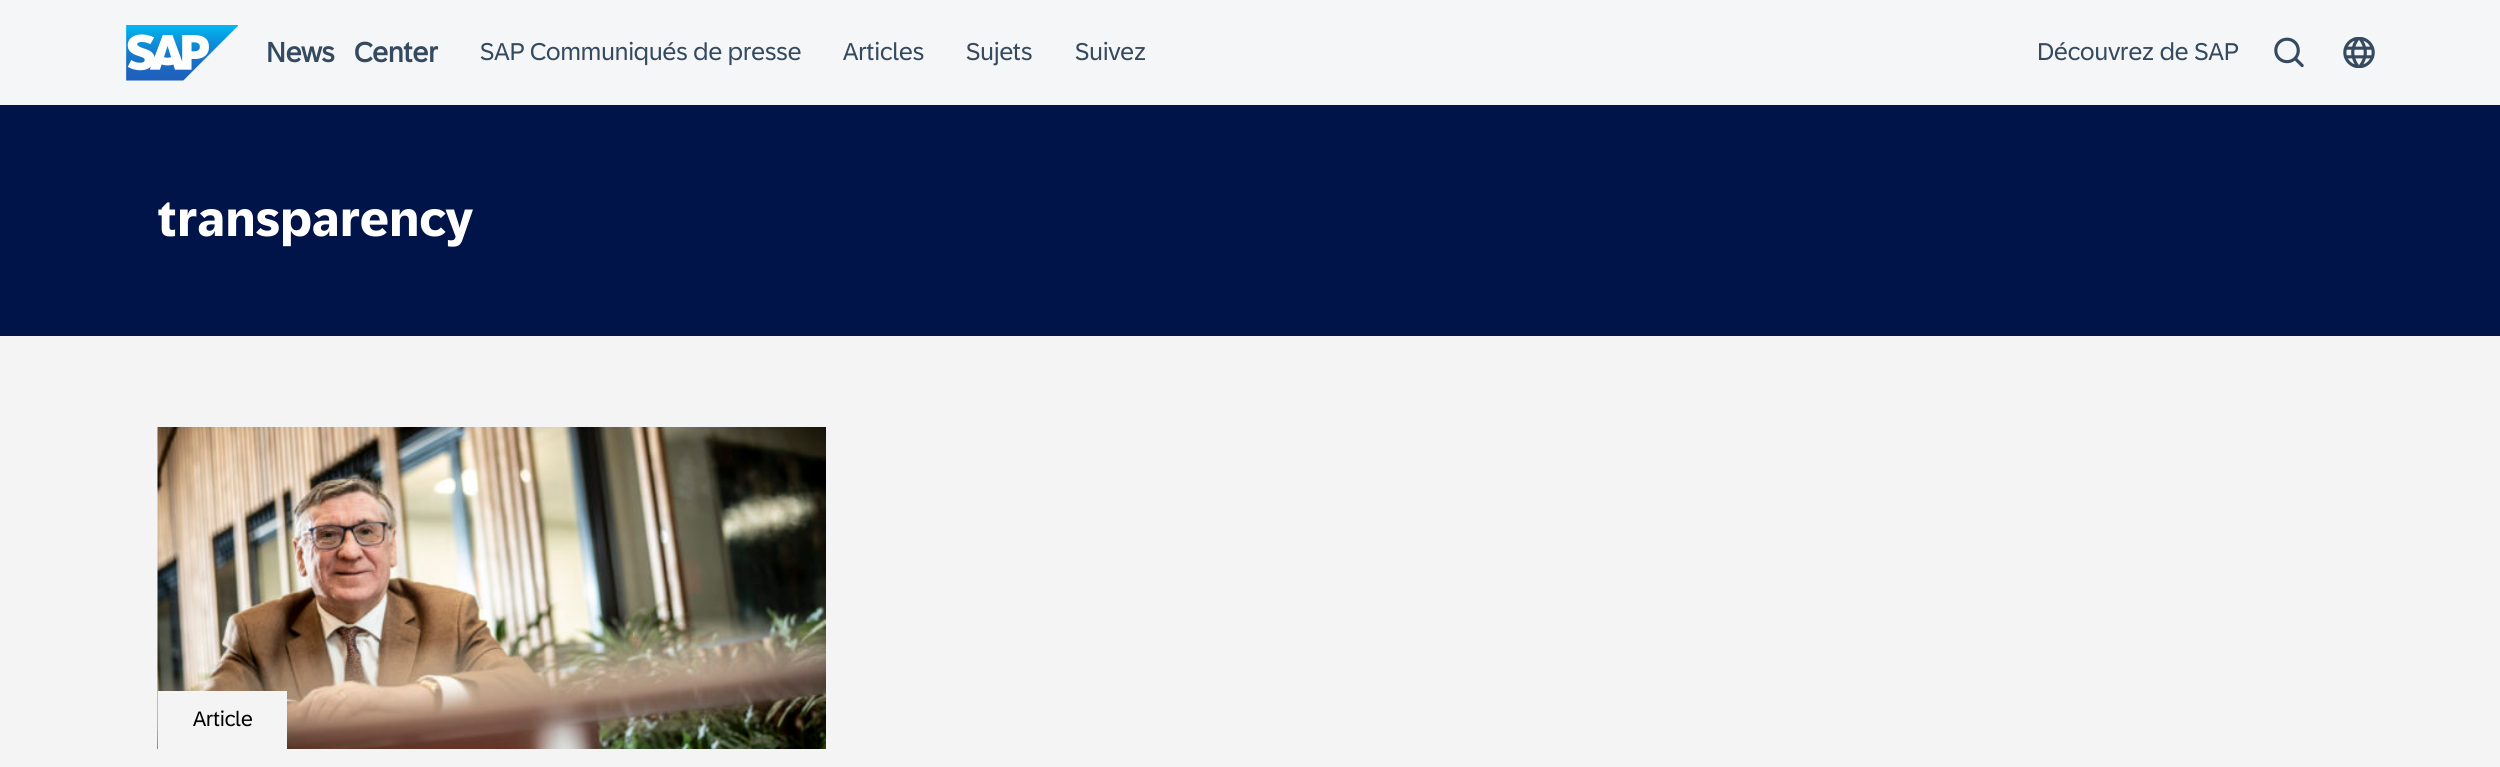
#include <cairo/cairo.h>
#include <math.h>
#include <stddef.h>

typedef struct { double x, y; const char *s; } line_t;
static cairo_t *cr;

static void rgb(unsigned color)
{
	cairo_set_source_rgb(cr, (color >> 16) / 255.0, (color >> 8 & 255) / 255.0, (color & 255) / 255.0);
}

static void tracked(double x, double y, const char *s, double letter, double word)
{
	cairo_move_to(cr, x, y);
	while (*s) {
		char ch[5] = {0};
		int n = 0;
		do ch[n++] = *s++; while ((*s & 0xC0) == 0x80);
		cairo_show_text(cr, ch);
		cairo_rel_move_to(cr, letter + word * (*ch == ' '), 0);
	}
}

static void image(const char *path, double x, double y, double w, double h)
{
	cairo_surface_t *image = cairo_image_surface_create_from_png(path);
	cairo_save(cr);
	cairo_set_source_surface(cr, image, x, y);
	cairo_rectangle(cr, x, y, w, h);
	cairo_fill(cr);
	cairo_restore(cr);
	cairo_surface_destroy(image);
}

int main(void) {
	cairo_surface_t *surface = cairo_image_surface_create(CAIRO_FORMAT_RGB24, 2500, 767);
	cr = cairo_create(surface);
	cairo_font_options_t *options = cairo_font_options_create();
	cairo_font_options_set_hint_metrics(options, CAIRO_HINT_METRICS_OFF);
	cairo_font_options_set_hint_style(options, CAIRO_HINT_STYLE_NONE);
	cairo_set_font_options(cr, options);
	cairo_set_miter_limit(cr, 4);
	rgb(0xf5f6f7);
	cairo_paint(cr);
	image("img/1.png", 126, 25, 112, 56);
	image("img/2.png", 2274, 37, 30, 31);
	image("img/3.png", 2343, 37, 32, 31);
	rgb(0xf4f4f4);
	cairo_rectangle(cr, 0, 336, 2500, 431);
	cairo_fill(cr);
	rgb(0x00144a);
	cairo_rectangle(cr, 0, 105, 2500, 231);
	cairo_fill(cr);
	image("img/4.png", 157, 427, 669, 322);
	rgb(0xf4f4f4);
	cairo_rectangle(cr, 158, 691, 129, 58);
	cairo_fill(cr);
	cairo_select_font_face(cr, "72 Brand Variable", CAIRO_FONT_SLANT_NORMAL, CAIRO_FONT_WEIGHT_BOLD);
	cairo_set_font_size(cr, 28);
	rgb(0x354a5f);
	tracked(266, 62, "News Center", 0, 13);
	cairo_select_font_face(cr, "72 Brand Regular", CAIRO_FONT_SLANT_NORMAL, CAIRO_FONT_WEIGHT_NORMAL);
	cairo_set_font_size(cr, 24.5);
	{
		static const line_t items[] = {
			{480, 60, "SAP Communiqués de presse"},
			{843, 60, "Articles"},
			{966, 60, "Sujets"},
			{1075, 60, "Suivez"},
			{2037, 60, "Découvrez de SAP"},
		};
		for (size_t i = 0; i < sizeof items / sizeof *items; i++) {
			cairo_move_to(cr, items[i].x, items[i].y);
			cairo_show_text(cr, items[i].s);
		}
	}
	cairo_select_font_face(cr, "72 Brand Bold", CAIRO_FONT_SLANT_NORMAL, CAIRO_FONT_WEIGHT_BOLD);
	cairo_set_font_size(cr, 49);
	rgb(0xffffff);
	cairo_move_to(cr, 158, 236);
	cairo_show_text(cr, "transparency");
	cairo_select_font_face(cr, "72 Brand Regular", CAIRO_FONT_SLANT_NORMAL, CAIRO_FONT_WEIGHT_NORMAL);
	cairo_set_font_size(cr, 21);
	rgb(0x000000);
	cairo_move_to(cr, 193, 726);
	cairo_show_text(cr, "Article");
	cairo_surface_write_to_png(surface, "page.png");
	cairo_font_options_destroy(options);
	cairo_destroy(cr);
	cairo_surface_destroy(surface);
	return 0;
}
